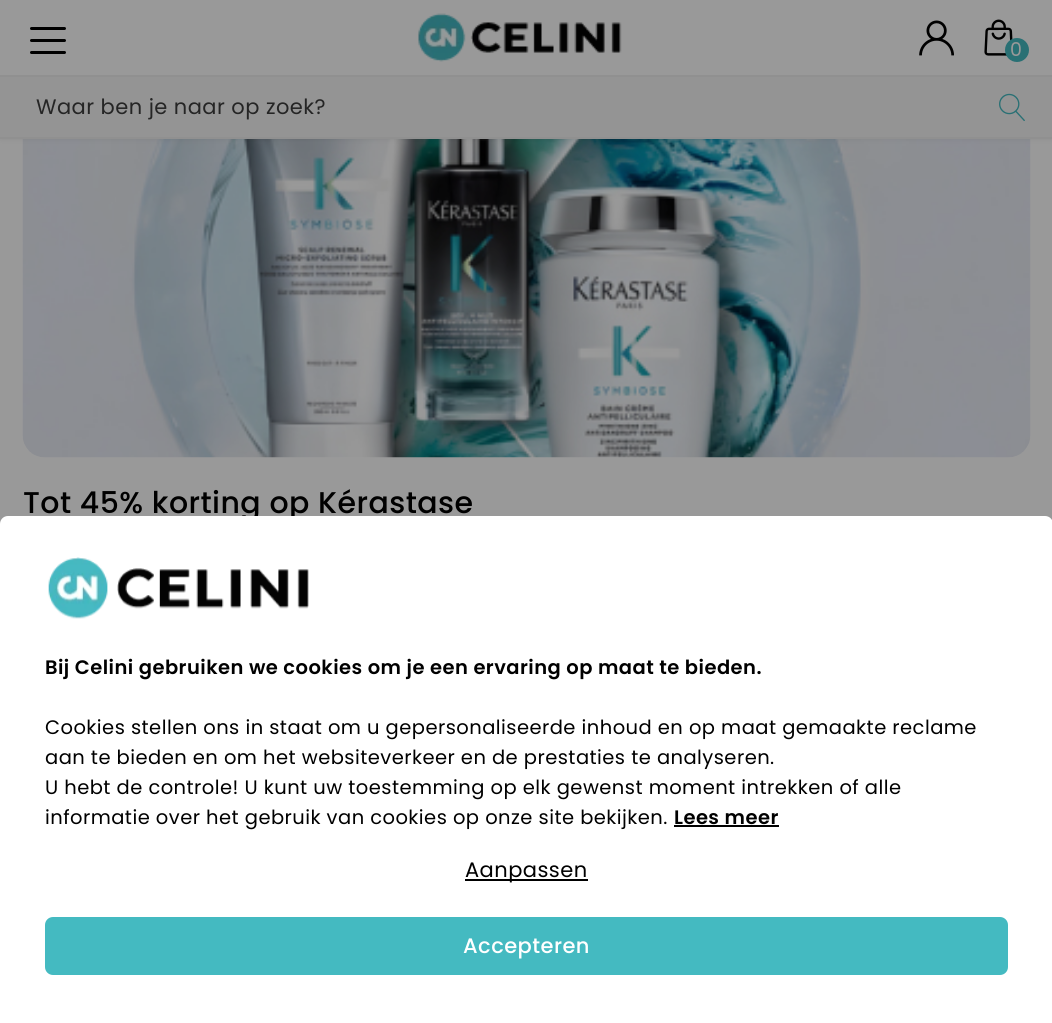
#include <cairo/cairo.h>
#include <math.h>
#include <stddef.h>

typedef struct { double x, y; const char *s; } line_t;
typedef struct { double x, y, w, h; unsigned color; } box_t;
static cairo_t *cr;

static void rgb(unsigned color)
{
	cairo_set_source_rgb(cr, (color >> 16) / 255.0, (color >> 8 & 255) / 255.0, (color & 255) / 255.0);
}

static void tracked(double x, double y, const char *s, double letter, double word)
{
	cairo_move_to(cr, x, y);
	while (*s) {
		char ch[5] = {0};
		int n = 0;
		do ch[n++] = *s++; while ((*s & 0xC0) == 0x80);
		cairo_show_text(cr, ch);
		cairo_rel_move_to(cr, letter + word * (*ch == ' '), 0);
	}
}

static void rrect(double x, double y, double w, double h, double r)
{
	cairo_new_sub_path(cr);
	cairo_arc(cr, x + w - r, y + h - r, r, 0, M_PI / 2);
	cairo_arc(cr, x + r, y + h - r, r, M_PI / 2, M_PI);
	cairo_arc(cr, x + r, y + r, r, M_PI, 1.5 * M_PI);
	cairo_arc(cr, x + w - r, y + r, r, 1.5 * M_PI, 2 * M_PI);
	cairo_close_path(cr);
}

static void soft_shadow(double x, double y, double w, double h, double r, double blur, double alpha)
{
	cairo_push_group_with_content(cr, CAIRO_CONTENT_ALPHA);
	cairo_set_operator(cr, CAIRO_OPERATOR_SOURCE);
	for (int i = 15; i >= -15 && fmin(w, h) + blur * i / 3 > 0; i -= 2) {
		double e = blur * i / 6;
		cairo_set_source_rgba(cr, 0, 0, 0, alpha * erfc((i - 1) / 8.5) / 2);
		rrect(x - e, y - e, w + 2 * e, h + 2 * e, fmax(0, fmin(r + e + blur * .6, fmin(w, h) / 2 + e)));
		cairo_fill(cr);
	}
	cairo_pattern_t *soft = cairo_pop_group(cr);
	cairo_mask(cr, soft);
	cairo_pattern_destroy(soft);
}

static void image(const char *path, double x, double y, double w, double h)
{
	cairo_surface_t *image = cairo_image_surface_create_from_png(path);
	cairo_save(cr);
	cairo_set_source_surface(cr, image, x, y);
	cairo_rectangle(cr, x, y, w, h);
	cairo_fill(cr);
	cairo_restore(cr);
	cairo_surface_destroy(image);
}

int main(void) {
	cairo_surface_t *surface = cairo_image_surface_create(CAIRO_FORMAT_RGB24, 1052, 1023);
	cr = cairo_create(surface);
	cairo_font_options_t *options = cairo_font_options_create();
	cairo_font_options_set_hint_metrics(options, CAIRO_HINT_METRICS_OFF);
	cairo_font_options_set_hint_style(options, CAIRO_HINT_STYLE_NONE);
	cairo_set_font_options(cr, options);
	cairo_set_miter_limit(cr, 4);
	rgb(0x999999);
	cairo_paint(cr);
	image("img/5.png", 22, 139, 1009, 319);
	rgb(0x000000);
	soft_shadow(0, 0, 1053, 138, 0, 3, 0.1);
	rgb(0x999999);
	cairo_rectangle(cr, 0, 0, 1052, 75);
	cairo_fill(cr);
	rgb(0x000000);
	rrect(30, 39, 36, 3, 1.5);
	cairo_fill(cr);
	rrect(30, 27, 36, 3, 1.5);
	cairo_fill(cr);
	rrect(30, 51, 36, 3, 1.5);
	cairo_fill(cr);
	image("img/1.png", 418, 13, 204, 49);
	image("img/2.png", 919, 20, 35, 36);
	image("img/3.png", 984, 19, 29, 37);
	rgb(0x297074);
	cairo_arc(cr, 1017, 50, 12, 0, 2 * M_PI);
	cairo_fill(cr);
	{
		static const box_t items[] = {
			{0, 77, 1052, 60, 0x949494},
			{0, 75, 1052, 2, 0x909090},
			{0, 137, 1052, 2, 0x909090},
		};
		for (size_t i = 0; i < sizeof items / sizeof *items; i++) {
			rgb(items[i].color);
			cairo_rectangle(cr, items[i].x, items[i].y, items[i].w, items[i].h);
			cairo_fill(cr);
		}
	}
	image("img/4.png", 999, 93, 26, 28);
	cairo_select_font_face(cr, "Poppins", CAIRO_FONT_SLANT_NORMAL, CAIRO_FONT_WEIGHT_NORMAL);
	cairo_set_font_size(cr, 19);
	rgb(0x999999);
	tracked(1010, 56, "0", 0.45, 0);
	cairo_set_font_size(cr, 21);
	rgb(0x252525);
	tracked(36, 114, "Waar ben je naar op zoek?", 0.45, 0);
	cairo_select_font_face(cr, "Poppins Medium", CAIRO_FONT_SLANT_NORMAL, CAIRO_FONT_WEIGHT_NORMAL);
	cairo_set_font_size(cr, 30);
	rgb(0x000000);
	tracked(23, 513, "Tot 45% korting op Kérastase", 0.45, 0);
	rgb(0xffffff);
	cairo_new_path(cr);
	cairo_move_to(cr, 8, 516);
	cairo_line_to(cr, 1045, 516);
	cairo_curve_to(cr, 1049.5, 516, 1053, 519.5, 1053, 524);
	cairo_line_to(cr, 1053, 1023);
	cairo_line_to(cr, 0, 1023);
	cairo_line_to(cr, 0, 524);
	cairo_curve_to(cr, 0, 519.5, 3.5, 516, 8, 516);
	cairo_close_path(cr);
	cairo_fill(cr);
	image("img/6.png", 48, 557, 261, 62);
	cairo_select_font_face(cr, "Poppins SemiBold", CAIRO_FONT_SLANT_NORMAL, CAIRO_FONT_WEIGHT_NORMAL);
	cairo_set_font_size(cr, 19.5);
	rgb(0x000000);
	tracked(45, 674, "Bij Celini gebruiken we cookies om je een ervaring op maat te bieden.", 0.45, 0);
	cairo_select_font_face(cr, "Poppins", CAIRO_FONT_SLANT_NORMAL, CAIRO_FONT_WEIGHT_NORMAL);
	{
		static const line_t items[] = {
			{45, 734, "Cookies stellen ons in staat om u gepersonaliseerde inhoud en op maat gemaakte reclame"},
			{45, 764, "aan te bieden en om het websiteverkeer en de prestaties te analyseren."},
			{45, 794, "U hebt de controle! U kunt uw toestemming op elk gewenst moment intrekken of alle"},
			{45, 824, "informatie over het gebruik van cookies op onze site bekijken."},
		};
		for (size_t i = 0; i < sizeof items / sizeof *items; i++) {
			tracked(items[i].x, items[i].y, items[i].s, 0.45, 0);
		}
	}
	cairo_select_font_face(cr, "Poppins SemiBold", CAIRO_FONT_SLANT_NORMAL, CAIRO_FONT_WEIGHT_NORMAL);
	tracked(674, 824, "Lees meer", 0.45, 0);
	cairo_rectangle(cr, 674, 825, 105, 2);
	cairo_fill(cr);
	cairo_rectangle(cr, 465, 879, 123, 2);
	cairo_fill(cr);
	cairo_select_font_face(cr, "Poppins", CAIRO_FONT_SLANT_NORMAL, CAIRO_FONT_WEIGHT_NORMAL);
	cairo_set_font_size(cr, 21);
	tracked(465, 877, "Aanpassen", 0.45, 0);
	rgb(0x44bac1);
	rrect(46, 918, 961, 56, 7);
	cairo_fill_preserve(cr);
	cairo_stroke(cr);
	cairo_select_font_face(cr, "Poppins Medium", CAIRO_FONT_SLANT_NORMAL, CAIRO_FONT_WEIGHT_NORMAL);
	rgb(0xffffff);
	tracked(463, 953, "Accepteren", 0.45, 0);
	cairo_surface_write_to_png(surface, "page.png");
	cairo_font_options_destroy(options);
	cairo_destroy(cr);
	cairo_surface_destroy(surface);
	return 0;
}
